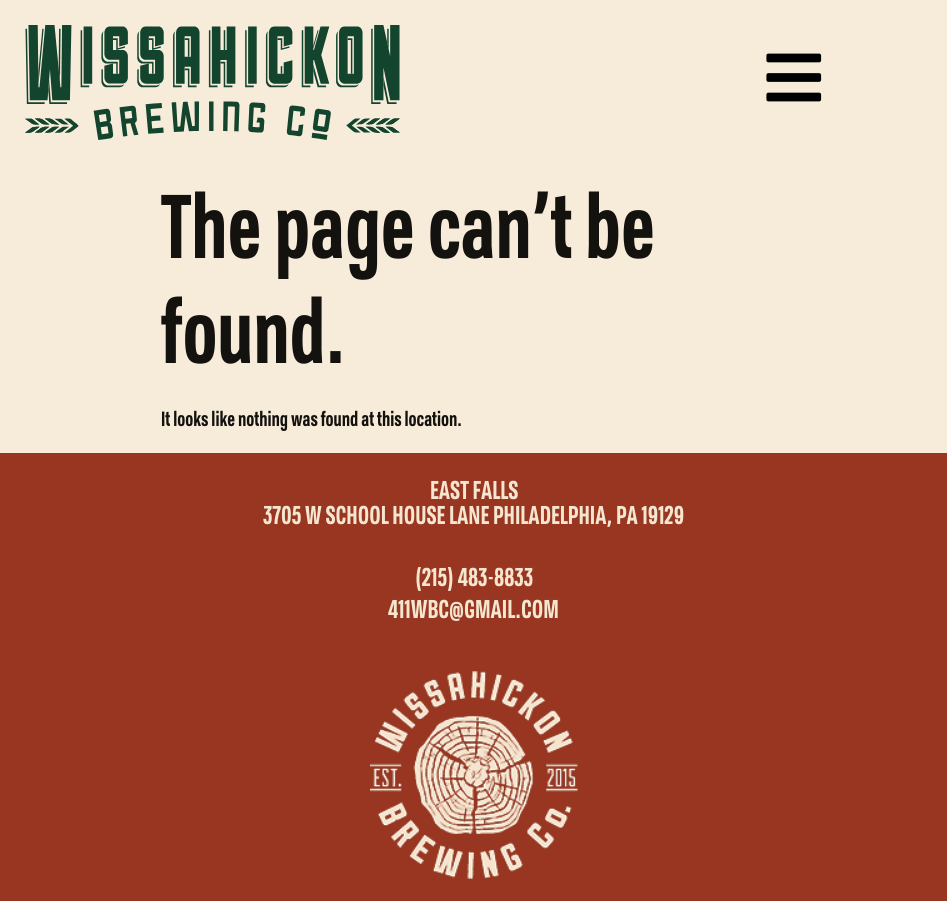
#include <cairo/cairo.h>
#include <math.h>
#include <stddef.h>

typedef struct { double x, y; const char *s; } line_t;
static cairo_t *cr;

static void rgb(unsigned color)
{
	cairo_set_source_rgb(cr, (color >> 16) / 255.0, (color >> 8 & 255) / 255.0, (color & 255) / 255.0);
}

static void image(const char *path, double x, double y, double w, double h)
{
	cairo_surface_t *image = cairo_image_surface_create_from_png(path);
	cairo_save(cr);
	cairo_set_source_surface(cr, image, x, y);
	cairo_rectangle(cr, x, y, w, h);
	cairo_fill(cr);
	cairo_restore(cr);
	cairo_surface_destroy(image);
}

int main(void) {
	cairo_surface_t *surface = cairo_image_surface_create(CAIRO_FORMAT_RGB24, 947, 901);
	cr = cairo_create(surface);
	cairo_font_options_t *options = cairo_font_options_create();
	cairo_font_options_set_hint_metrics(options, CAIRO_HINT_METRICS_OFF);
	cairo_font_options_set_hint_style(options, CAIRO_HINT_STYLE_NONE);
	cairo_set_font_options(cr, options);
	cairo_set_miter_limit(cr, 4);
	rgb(0xf7ebda);
	cairo_paint(cr);
	image("img/1.png", 25, 25, 375, 115);
	image("img/2.png", 766, 53, 56, 49);
	rgb(0x983621);
	cairo_rectangle(cr, 0, 453, 947, 448);
	cairo_fill(cr);
	image("img/3.png", 370, 671, 208, 208);
	cairo_select_font_face(cr, "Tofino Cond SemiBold", CAIRO_FONT_SLANT_NORMAL, CAIRO_FONT_WEIGHT_NORMAL);
	cairo_set_font_size(cr, 87.5);
	rgb(0x14120e);
	cairo_move_to(cr, 161, 258);
	cairo_show_text(cr, "The page can’t be");
	cairo_move_to(cr, 161, 363);
	cairo_show_text(cr, "found.");
	cairo_set_font_size(cr, 20);
	cairo_move_to(cr, 161, 426);
	cairo_show_text(cr, "It looks like nothing was found at this location.");
	cairo_set_font_size(cr, 25);
	rgb(0xf5e6d0);
	{
		static const line_t items[] = {
			{430, 499, "EAST FALLS"},
			{263, 524, "3705 W SCHOOL HOUSE LANE PHILADELPHIA, PA 19129"},
			{415, 586, "(215) 483-8833"},
			{388, 618, "411WBC@GMAIL.COM"},
		};
		for (size_t i = 0; i < sizeof items / sizeof *items; i++) {
			cairo_move_to(cr, items[i].x, items[i].y);
			cairo_show_text(cr, items[i].s);
		}
	}
	cairo_surface_write_to_png(surface, "page.png");
	cairo_font_options_destroy(options);
	cairo_destroy(cr);
	cairo_surface_destroy(surface);
	return 0;
}
